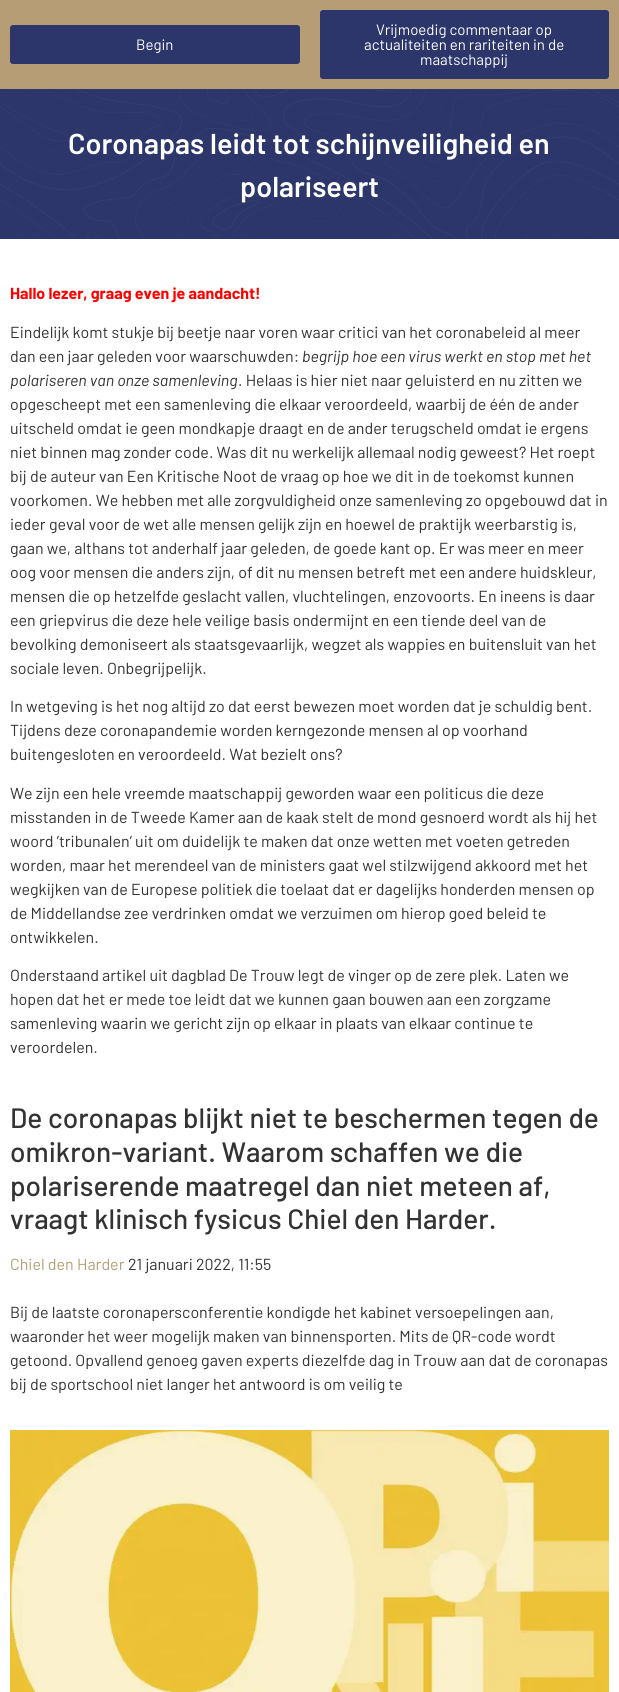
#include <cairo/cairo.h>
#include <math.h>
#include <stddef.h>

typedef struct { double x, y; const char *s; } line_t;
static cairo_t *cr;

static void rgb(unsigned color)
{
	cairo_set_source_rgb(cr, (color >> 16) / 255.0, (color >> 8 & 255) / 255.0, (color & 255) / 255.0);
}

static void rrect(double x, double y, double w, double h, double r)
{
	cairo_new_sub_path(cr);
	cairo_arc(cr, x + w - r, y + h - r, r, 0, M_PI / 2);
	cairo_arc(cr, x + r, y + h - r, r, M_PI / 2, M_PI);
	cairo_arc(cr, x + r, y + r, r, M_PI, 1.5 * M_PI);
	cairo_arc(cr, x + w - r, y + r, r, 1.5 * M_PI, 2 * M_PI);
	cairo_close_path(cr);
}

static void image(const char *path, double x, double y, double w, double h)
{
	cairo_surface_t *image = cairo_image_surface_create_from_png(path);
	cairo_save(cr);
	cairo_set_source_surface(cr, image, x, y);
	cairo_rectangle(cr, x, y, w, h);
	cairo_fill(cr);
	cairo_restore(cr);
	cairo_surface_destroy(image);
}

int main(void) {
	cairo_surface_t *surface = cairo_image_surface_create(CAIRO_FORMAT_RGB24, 619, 1692);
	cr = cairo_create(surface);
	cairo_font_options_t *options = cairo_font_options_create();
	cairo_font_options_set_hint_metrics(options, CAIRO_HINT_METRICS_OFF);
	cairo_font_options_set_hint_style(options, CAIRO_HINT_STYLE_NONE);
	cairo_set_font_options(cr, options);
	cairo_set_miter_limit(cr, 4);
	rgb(0xffffff);
	cairo_paint(cr);
	rgb(0xb69d75);
	cairo_rectangle(cr, 0, 0, 619, 89);
	cairo_fill(cr);
	rgb(0x2c366a);
	rrect(10, 25, 290, 39, 3);
	cairo_fill(cr);
	rrect(320, 10, 289, 69, 3);
	cairo_fill(cr);
	cairo_rectangle(cr, 0, 89, 619, 150);
	cairo_fill(cr);
	image("img/1.png", 0, 89, 619, 150);
	image("img/2.png", 10, 1430, 599, 262);
	cairo_select_font_face(cr, "Barlow", CAIRO_FONT_SLANT_NORMAL, CAIRO_FONT_WEIGHT_NORMAL);
	cairo_set_font_size(cr, 15);
	rgb(0xffffff);
	{
		static const line_t items[] = {
			{136, 50, "Begin"},
			{376, 35, "Vrijmoedig commentaar op"},
			{364, 50, "actualiteiten en rariteiten in de"},
			{420, 65, "maatschappij"},
		};
		for (size_t i = 0; i < sizeof items / sizeof *items; i++) {
			cairo_move_to(cr, items[i].x, items[i].y);
			cairo_show_text(cr, items[i].s);
		}
	}
	cairo_select_font_face(cr, "Barlow SemiBold", CAIRO_FONT_SLANT_NORMAL, CAIRO_FONT_WEIGHT_NORMAL);
	cairo_set_font_size(cr, 28.75);
	cairo_move_to(cr, 68, 154);
	cairo_show_text(cr, "Coronapas leidt tot schijnveiligheid en");
	cairo_move_to(cr, 240, 197);
	cairo_show_text(cr, "polariseert");
	cairo_select_font_face(cr, "Barlow", CAIRO_FONT_SLANT_NORMAL, CAIRO_FONT_WEIGHT_BOLD);
	cairo_set_font_size(cr, 16);
	rgb(0xff0000);
	cairo_move_to(cr, 10, 299);
	cairo_show_text(cr, "Hallo lezer, graag even je aandacht!");
	cairo_select_font_face(cr, "Barlow", CAIRO_FONT_SLANT_NORMAL, CAIRO_FONT_WEIGHT_NORMAL);
	rgb(0x333333);
	cairo_move_to(cr, 10, 338);
	cairo_show_text(cr, "Eindelijk komt stukje bij beetje naar voren waar critici van het coronabeleid al meer");
	cairo_move_to(cr, 10, 362);
	cairo_show_text(cr, "dan een jaar geleden voor waarschuwden:");
	cairo_select_font_face(cr, "Barlow", CAIRO_FONT_SLANT_ITALIC, CAIRO_FONT_WEIGHT_NORMAL);
	cairo_move_to(cr, 302, 362);
	cairo_show_text(cr, "begrijp hoe een virus werkt en stop met het");
	cairo_move_to(cr, 10, 386);
	cairo_show_text(cr, "polariseren van onze samenleving");
	cairo_select_font_face(cr, "Barlow", CAIRO_FONT_SLANT_NORMAL, CAIRO_FONT_WEIGHT_NORMAL);
	{
		static const line_t items[] = {
			{238, 386, ". Helaas is hier niet naar geluisterd en nu zitten we"},
			{10, 410, "opgescheept met een samenleving die elkaar veroordeeld, waarbij de één de ander"},
			{10, 434, "uitscheld omdat ie geen mondkapje draagt en de ander terugscheld omdat ie ergens"},
			{10, 458, "niet binnen mag zonder code. Was dit nu werkelijk allemaal nodig geweest? Het roept"},
			{10, 482, "bij de auteur van Een Kritische Noot de vraag op hoe we dit in de toekomst kunnen"},
			{10, 506, "voorkomen. We hebben met alle zorgvuldigheid onze samenleving zo opgebouwd dat in"},
			{10, 530, "ieder geval voor de wet alle mensen gelijk zijn en hoewel de praktijk weerbarstig is,"},
			{10, 554, "gaan we, althans tot anderhalf jaar geleden, de goede kant op. Er was meer en meer"},
			{10, 578, "oog voor mensen die anders zijn, of dit nu mensen betreft met een andere huidskleur,"},
			{10, 602, "mensen die op hetzelfde geslacht vallen, vluchtelingen, enzovoorts. En ineens is daar"},
			{10, 626, "een griepvirus die deze hele veilige basis ondermijnt en een tiende deel van de"},
			{10, 650, "bevolking demoniseert als staatsgevaarlijk, wegzet als wappies en buitensluit van het"},
			{10, 674, "sociale leven. Onbegrijpelijk."},
			{10, 712, "In wetgeving is het nog altijd zo dat eerst bewezen moet worden dat je schuldig bent."},
			{10, 736, "Tijdens deze coronapandemie worden kerngezonde mensen al op voorhand"},
			{10, 760, "buitengesloten en veroordeeld. Wat bezielt ons?"},
			{10, 799, "We zijn een hele vreemde maatschappij geworden waar een politicus die deze"},
			{10, 823, "misstanden in de Tweede Kamer aan de kaak stelt de mond gesnoerd wordt als hij het"},
			{10, 847, "woord ’tribunalen’ uit om duidelijk te maken dat onze wetten met voeten getreden"},
			{10, 871, "worden, maar het merendeel van de ministers gaat wel stilzwijgend akkoord met het"},
			{10, 895, "wegkijken van de Europese politiek die toelaat dat er dagelijks honderden mensen op"},
			{10, 919, "de Middellandse zee verdrinken omdat we verzuimen om hierop goed beleid te"},
			{10, 943, "ontwikkelen."},
			{10, 981, "Onderstaand artikel uit dagblad De Trouw legt de vinger op de zere plek. Laten we"},
			{10, 1005, "hopen dat het er mede toe leidt dat we kunnen gaan bouwen aan een zorgzame"},
			{10, 1029, "samenleving waarin we gericht zijn op elkaar in plaats van elkaar continue te"},
			{10, 1053, "veroordelen."},
		};
		for (size_t i = 0; i < sizeof items / sizeof *items; i++) {
			cairo_move_to(cr, items[i].x, items[i].y);
			cairo_show_text(cr, items[i].s);
		}
	}
	cairo_select_font_face(cr, "Barlow Medium", CAIRO_FONT_SLANT_NORMAL, CAIRO_FONT_WEIGHT_NORMAL);
	cairo_set_font_size(cr, 28);
	{
		static const line_t items[] = {
			{10, 1128, "De coronapas blijkt niet te beschermen tegen de"},
			{10, 1162, "omikron-variant. Waarom schaffen we die"},
			{10, 1196, "polariserende maatregel dan niet meteen af,"},
			{10, 1229, "vraagt klinisch fysicus Chiel den Harder."},
		};
		for (size_t i = 0; i < sizeof items / sizeof *items; i++) {
			cairo_move_to(cr, items[i].x, items[i].y);
			cairo_show_text(cr, items[i].s);
		}
	}
	cairo_select_font_face(cr, "Barlow", CAIRO_FONT_SLANT_NORMAL, CAIRO_FONT_WEIGHT_NORMAL);
	cairo_set_font_size(cr, 16);
	rgb(0xb69d75);
	cairo_move_to(cr, 10, 1270);
	cairo_show_text(cr, "Chiel den Harder");
	rgb(0x333333);
	{
		static const line_t items[] = {
			{128, 1270, "21 januari 2022, 11:55"},
			{10, 1318, "Bij de laatste coronapersconferentie kondigde het kabinet versoepelingen aan,"},
			{10, 1342, "waaronder het weer mogelijk maken van binnensporten. Mits de QR-code wordt"},
			{10, 1366, "getoond. Opvallend genoeg gaven experts diezelfde dag in Trouw aan dat de coronapas"},
			{10, 1390, "bij de sportschool niet langer het antwoord is om veilig te"},
		};
		for (size_t i = 0; i < sizeof items / sizeof *items; i++) {
			cairo_move_to(cr, items[i].x, items[i].y);
			cairo_show_text(cr, items[i].s);
		}
	}
	cairo_surface_write_to_png(surface, "page.png");
	cairo_font_options_destroy(options);
	cairo_destroy(cr);
	cairo_surface_destroy(surface);
	return 0;
}
